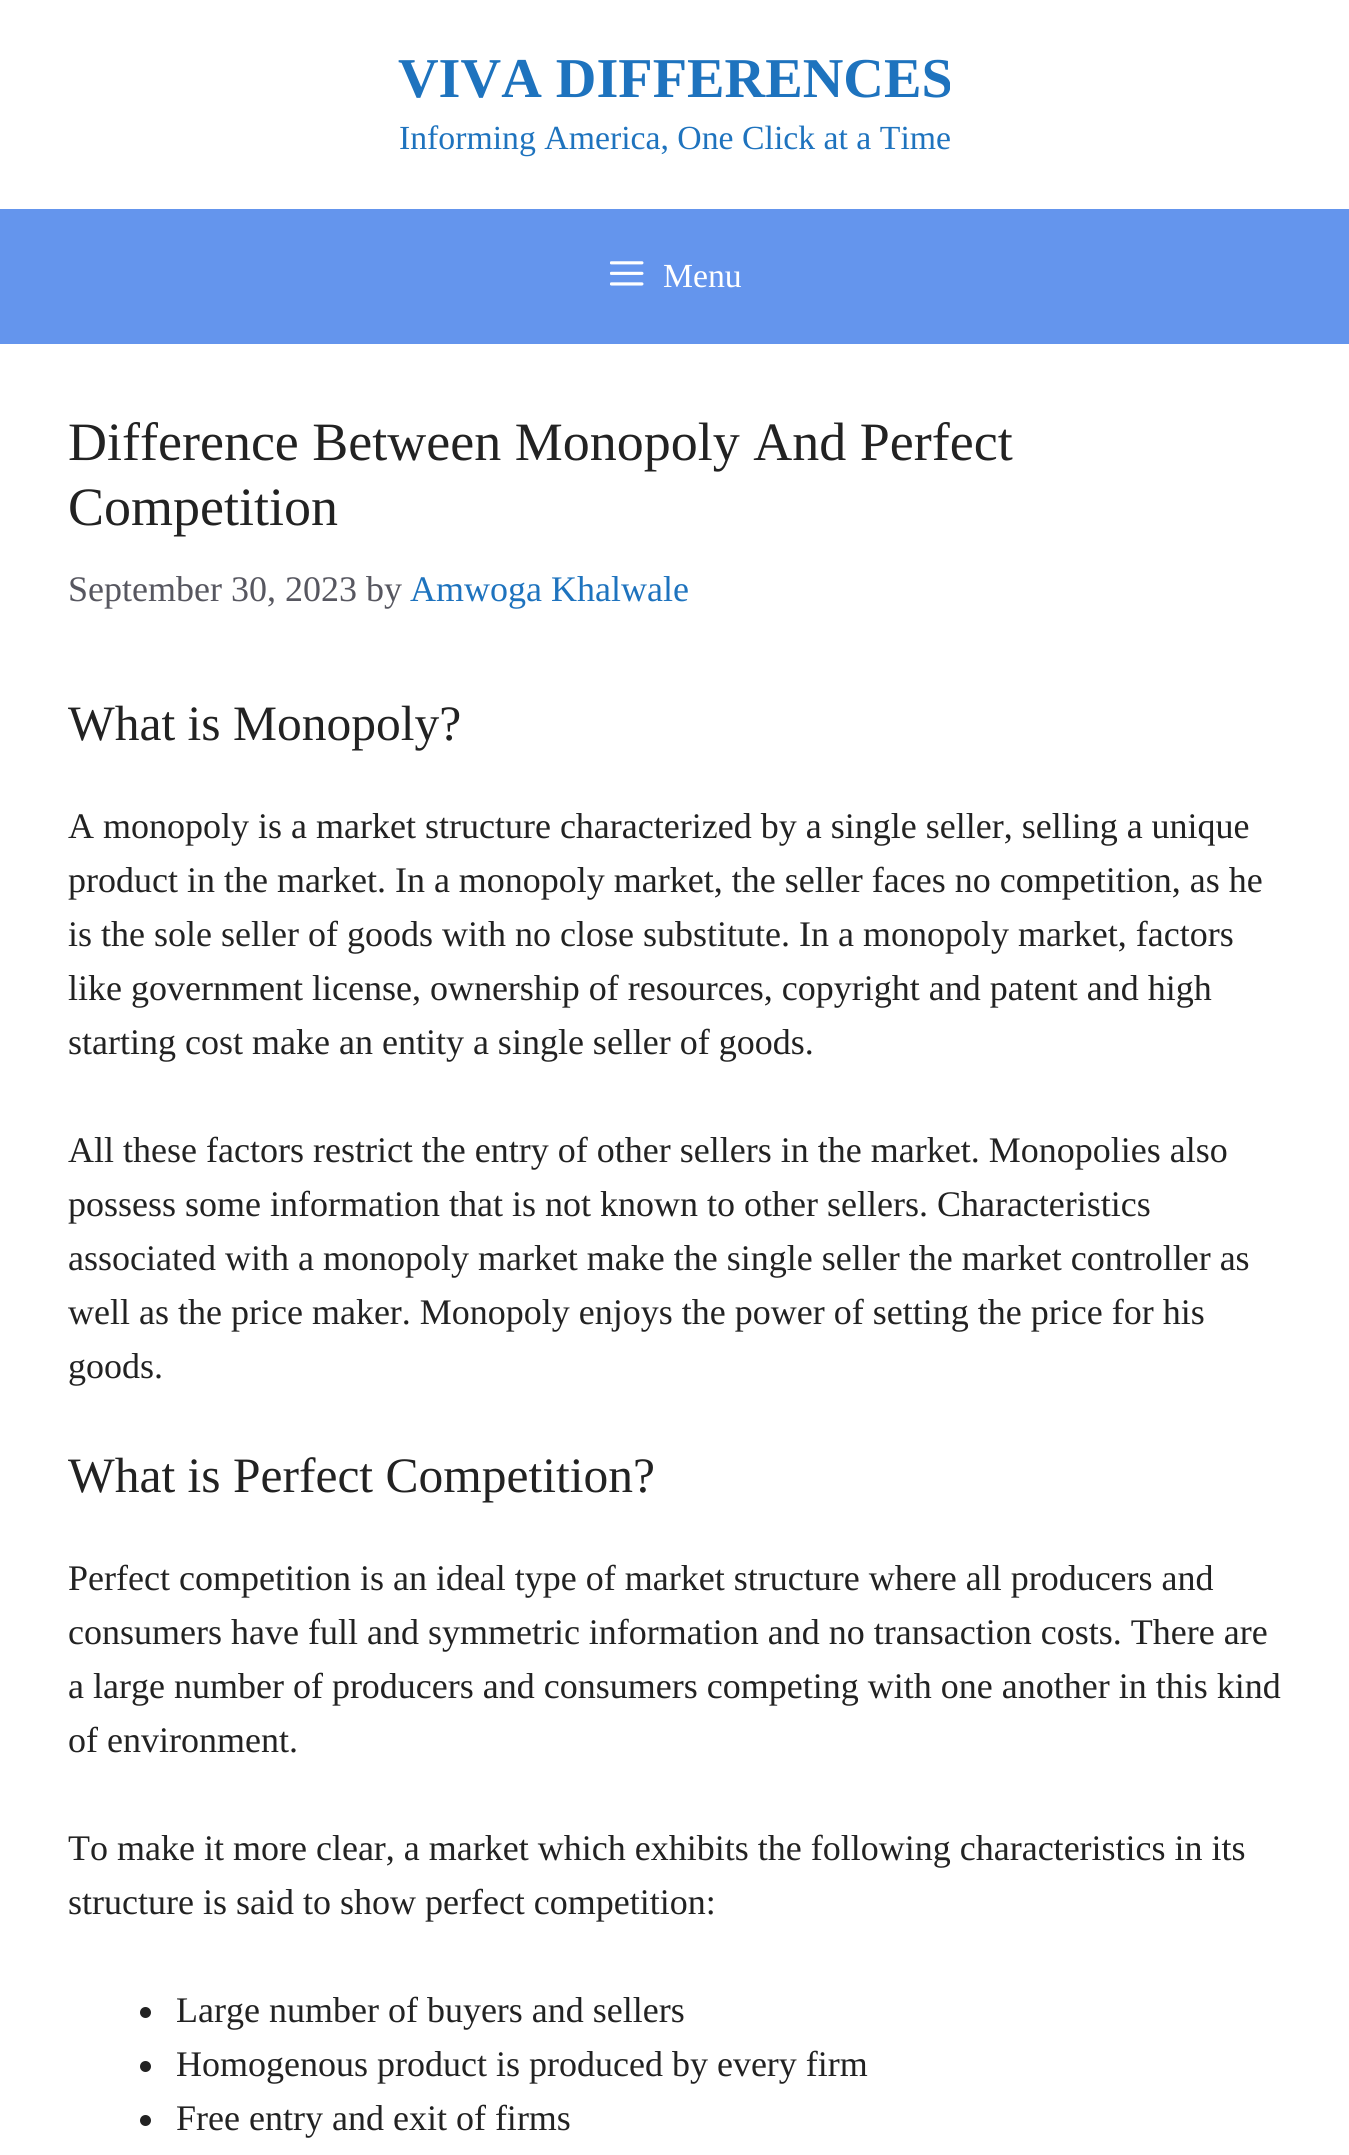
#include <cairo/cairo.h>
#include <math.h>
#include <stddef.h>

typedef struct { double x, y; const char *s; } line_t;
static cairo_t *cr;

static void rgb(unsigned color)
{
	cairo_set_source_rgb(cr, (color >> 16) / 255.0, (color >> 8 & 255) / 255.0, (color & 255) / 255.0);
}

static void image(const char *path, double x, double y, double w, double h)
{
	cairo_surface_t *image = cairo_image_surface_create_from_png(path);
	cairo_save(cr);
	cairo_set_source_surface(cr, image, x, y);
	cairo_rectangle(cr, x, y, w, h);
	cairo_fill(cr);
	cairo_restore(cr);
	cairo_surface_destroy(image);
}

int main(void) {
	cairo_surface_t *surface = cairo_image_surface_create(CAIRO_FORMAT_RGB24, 1349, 2155);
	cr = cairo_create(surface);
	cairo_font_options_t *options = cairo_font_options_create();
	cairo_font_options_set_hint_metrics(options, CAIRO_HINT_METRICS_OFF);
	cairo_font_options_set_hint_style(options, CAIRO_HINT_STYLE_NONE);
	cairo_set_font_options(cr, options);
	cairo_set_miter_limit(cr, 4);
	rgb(0x6495ed);
	cairo_paint(cr);
	rgb(0xffffff);
	cairo_rectangle(cr, 0, 0, 1349, 209);
	cairo_fill(cr);
	image("img/1.png", 610, 261, 34, 25);
	cairo_rectangle(cr, 0, 344, 1349, 1811);
	cairo_fill(cr);
	rgb(0x222222);
	cairo_arc(cr, 145.5, 2012.5, 5.5, 0, 2 * M_PI);
	cairo_fill(cr);
	cairo_arc(cr, 145.5, 2066.5, 5.5, 0, 2 * M_PI);
	cairo_fill(cr);
	cairo_arc(cr, 145.5, 2120.5, 5.5, 0, 2 * M_PI);
	cairo_fill(cr);
	cairo_select_font_face(cr, "Liberation Serif", CAIRO_FONT_SLANT_NORMAL, CAIRO_FONT_WEIGHT_BOLD);
	cairo_set_font_size(cr, 56.25);
	rgb(0x1e73be);
	cairo_move_to(cr, 398, 97);
	cairo_show_text(cr, "VIVA DIFFERENCES");
	cairo_select_font_face(cr, "Liberation Serif", CAIRO_FONT_SLANT_NORMAL, CAIRO_FONT_WEIGHT_NORMAL);
	cairo_set_font_size(cr, 33.75);
	cairo_move_to(cr, 399, 149);
	cairo_show_text(cr, "Informing America, One Click at a Time");
	rgb(0xffffff);
	cairo_move_to(cr, 663, 287);
	cairo_show_text(cr, "Menu");
	cairo_set_font_size(cr, 54);
	rgb(0x222222);
	cairo_move_to(cr, 68, 460);
	cairo_show_text(cr, "Difference Between Monopoly And Perfect");
	cairo_move_to(cr, 68, 525);
	cairo_show_text(cr, "Competition");
	cairo_set_font_size(cr, 36);
	rgb(0x575760);
	cairo_move_to(cr, 68, 601);
	cairo_show_text(cr, "September 30, 2023 by");
	rgb(0x1e73be);
	cairo_move_to(cr, 410, 601);
	cairo_show_text(cr, "Amwoga Khalwale");
	cairo_set_font_size(cr, 49.5);
	rgb(0x222222);
	cairo_move_to(cr, 68, 740);
	cairo_show_text(cr, "What is Monopoly?");
	cairo_set_font_size(cr, 36);
	{
		static const line_t items[] = {
			{68, 838, "A monopoly is a market structure characterized by a single seller, selling a unique"},
			{68, 892, "product in the market. In a monopoly market, the seller faces no competition, as he"},
			{68, 946, "is the sole seller of goods with no close substitute. In a monopoly market, factors"},
			{68, 1000, "like government license, ownership of resources, copyright and patent and high"},
			{68, 1054, "starting cost make an entity a single seller of goods."},
			{68, 1162, "All these factors restrict the entry of other sellers in the market. Monopolies also"},
			{68, 1216, "possess some information that is not known to other sellers. Characteristics"},
			{68, 1270, "associated with a monopoly market make the single seller the market controller as"},
			{68, 1324, "well as the price maker. Monopoly enjoys the power of setting the price for his"},
			{68, 1378, "goods."},
		};
		for (size_t i = 0; i < sizeof items / sizeof *items; i++) {
			cairo_move_to(cr, items[i].x, items[i].y);
			cairo_show_text(cr, items[i].s);
		}
	}
	cairo_set_font_size(cr, 49.5);
	cairo_move_to(cr, 68, 1492);
	cairo_show_text(cr, "What is Perfect Competition?");
	cairo_set_font_size(cr, 36);
	{
		static const line_t items[] = {
			{68, 1590, "Perfect competition is an ideal type of market structure where all producers and"},
			{68, 1644, "consumers have full and symmetric information and no transaction costs. There are"},
			{68, 1698, "a large number of producers and consumers competing with one another in this kind"},
			{68, 1752, "of environment."},
			{68, 1860, "To make it more clear, a market which exhibits the following characteristics in its"},
			{68, 1914, "structure is said to show perfect competition:"},
			{176, 2022, "Large number of buyers and sellers"},
			{176, 2076, "Homogenous product is produced by every firm"},
			{176, 2130, "Free entry and exit of firms"},
		};
		for (size_t i = 0; i < sizeof items / sizeof *items; i++) {
			cairo_move_to(cr, items[i].x, items[i].y);
			cairo_show_text(cr, items[i].s);
		}
	}
	cairo_surface_write_to_png(surface, "page.png");
	cairo_font_options_destroy(options);
	cairo_destroy(cr);
	cairo_surface_destroy(surface);
	return 0;
}
